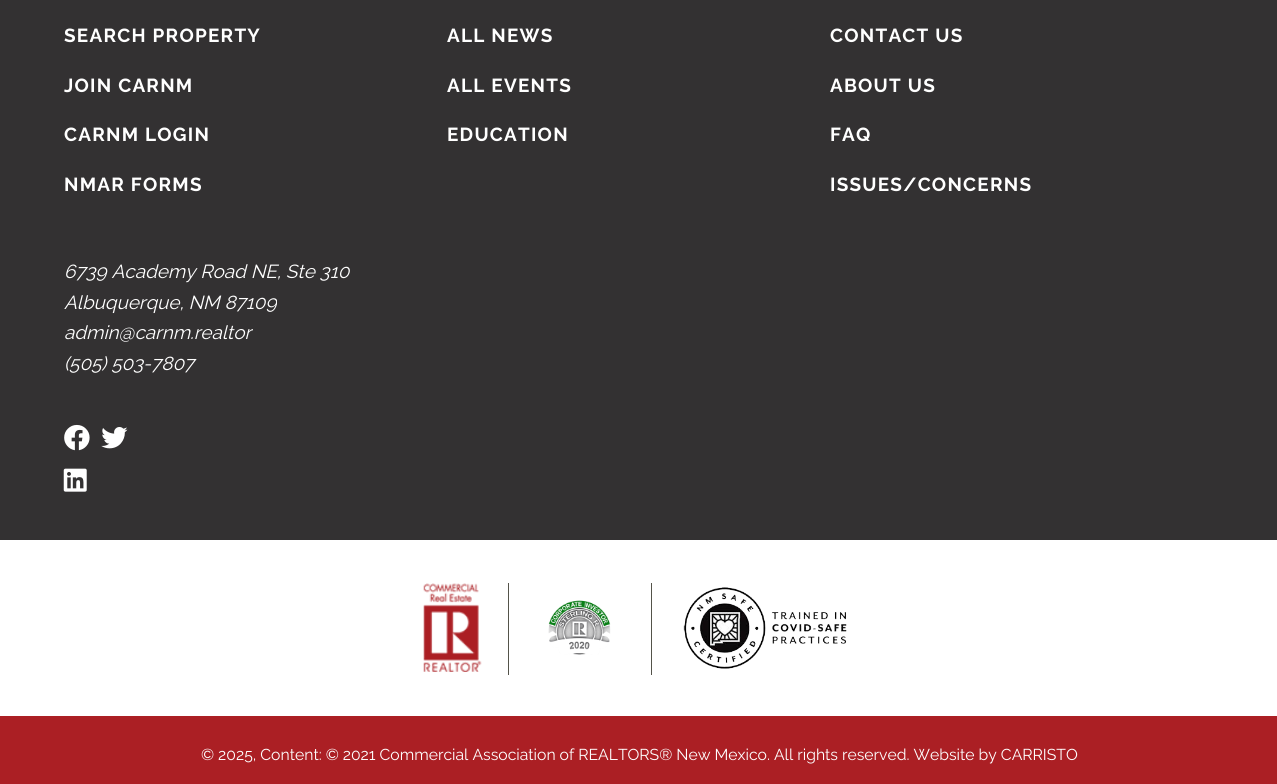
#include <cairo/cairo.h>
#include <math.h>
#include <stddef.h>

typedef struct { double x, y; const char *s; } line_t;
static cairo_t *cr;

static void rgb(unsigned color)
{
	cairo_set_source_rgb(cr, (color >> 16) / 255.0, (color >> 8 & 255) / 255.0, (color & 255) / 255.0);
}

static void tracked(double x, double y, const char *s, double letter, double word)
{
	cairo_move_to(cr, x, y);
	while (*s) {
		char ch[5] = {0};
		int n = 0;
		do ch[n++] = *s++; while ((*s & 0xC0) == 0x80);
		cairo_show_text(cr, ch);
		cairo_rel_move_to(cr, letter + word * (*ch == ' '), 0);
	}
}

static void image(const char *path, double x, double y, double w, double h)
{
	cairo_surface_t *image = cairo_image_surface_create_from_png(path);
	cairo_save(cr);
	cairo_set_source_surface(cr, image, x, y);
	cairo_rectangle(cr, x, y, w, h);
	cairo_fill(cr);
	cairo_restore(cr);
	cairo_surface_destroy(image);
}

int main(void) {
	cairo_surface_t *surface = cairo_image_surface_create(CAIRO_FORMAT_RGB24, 1277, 784);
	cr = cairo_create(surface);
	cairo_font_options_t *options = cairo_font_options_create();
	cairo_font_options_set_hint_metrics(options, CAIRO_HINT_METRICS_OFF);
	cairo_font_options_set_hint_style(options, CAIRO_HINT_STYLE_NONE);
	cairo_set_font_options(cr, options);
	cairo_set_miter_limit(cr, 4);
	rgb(0xffffff);
	cairo_paint(cr);
	rgb(0x333132);
	cairo_rectangle(cr, 0, 0, 1277, 540);
	cairo_fill(cr);
	image("img/1.png", 64, 424, 26, 27);
	image("img/2.png", 101, 427, 27, 22);
	image("img/3.png", 63, 468, 24, 24);
	image("img/4.png", 423, 583, 59, 89);
	rgb(0x54534a);
	cairo_rectangle(cr, 508, 583, 1, 92);
	cairo_fill(cr);
	image("img/5.png", 548, 600, 63, 55);
	cairo_rectangle(cr, 651, 583, 1, 92);
	cairo_fill(cr);
	image("img/6.png", 683, 587, 164, 82);
	rgb(0xab1f24);
	cairo_rectangle(cr, 0, 716, 1277, 68);
	cairo_fill(cr);
	cairo_select_font_face(cr, "Raleway", CAIRO_FONT_SLANT_NORMAL, CAIRO_FONT_WEIGHT_BOLD);
	cairo_set_font_size(cr, 18.9);
	rgb(0xffffff);
	{
		static const line_t items[] = {
			{64, 42, "SEARCH PROPERTY"},
			{64, 92, "JOIN CARNM"},
			{64, 141, "CARNM LOGIN"},
			{64, 191, "NMAR FORMS"},
			{447, 42, "ALL NEWS"},
			{447, 92, "ALL EVENTS"},
			{447, 141, "EDUCATION"},
			{830, 42, "CONTACT US"},
			{830, 92, "ABOUT US"},
			{830, 141, "FAQ"},
			{830, 191, "ISSUES/CONCERNS"},
		};
		for (size_t i = 0; i < sizeof items / sizeof *items; i++) {
			tracked(items[i].x, items[i].y, items[i].s, 1.25, 0);
		}
	}
	cairo_select_font_face(cr, "Raleway", CAIRO_FONT_SLANT_ITALIC, CAIRO_FONT_WEIGHT_NORMAL);
	{
		static const line_t items[] = {
			{64, 278, "6739 Academy Road NE, Ste 310"},
			{64, 309, "Albuquerque, NM 87109"},
			{64, 339, "admin@carnm.realtor"},
			{64, 370, "(505) 503-7807"},
		};
		for (size_t i = 0; i < sizeof items / sizeof *items; i++) {
			cairo_move_to(cr, items[i].x, items[i].y);
			cairo_show_text(cr, items[i].s);
		}
	}
	cairo_select_font_face(cr, "Raleway", CAIRO_FONT_SLANT_NORMAL, CAIRO_FONT_WEIGHT_NORMAL);
	cairo_set_font_size(cr, 15.75);
	cairo_move_to(cr, 201, 760);
	cairo_show_text(cr, "© 2025, Content: © 2021 Commercial Association of REALTORS® New Mexico. All rights reserved. Website by CARRISTO");
	cairo_surface_write_to_png(surface, "page.png");
	cairo_font_options_destroy(options);
	cairo_destroy(cr);
	cairo_surface_destroy(surface);
	return 0;
}
